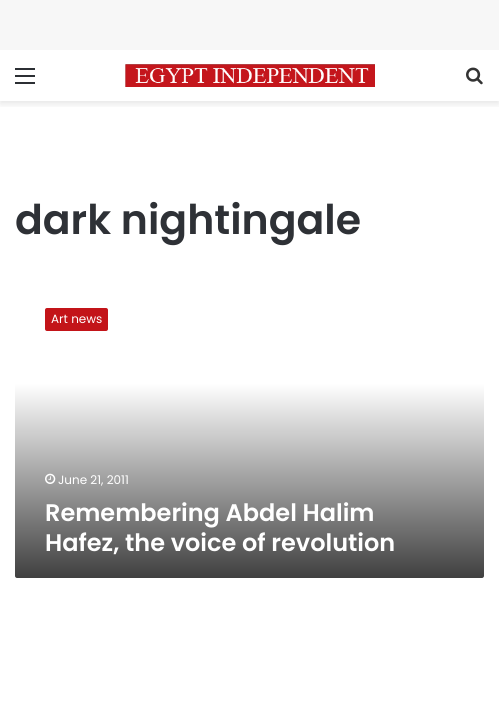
#include <cairo/cairo.h>
#include <math.h>
#include <stddef.h>

typedef struct { double x, y, w, h; unsigned color; } box_t;
static cairo_t *cr;

static void rgb(unsigned color)
{
	cairo_set_source_rgb(cr, (color >> 16) / 255.0, (color >> 8 & 255) / 255.0, (color & 255) / 255.0);
}

static void rrect(double x, double y, double w, double h, double r)
{
	cairo_new_sub_path(cr);
	cairo_arc(cr, x + w - r, y + h - r, r, 0, M_PI / 2);
	cairo_arc(cr, x + r, y + h - r, r, M_PI / 2, M_PI);
	cairo_arc(cr, x + r, y + r, r, M_PI, 1.5 * M_PI);
	cairo_arc(cr, x + w - r, y + r, r, 1.5 * M_PI, 2 * M_PI);
	cairo_close_path(cr);
}

static void soft_shadow(double x, double y, double w, double h, double r, double blur, double alpha)
{
	cairo_push_group_with_content(cr, CAIRO_CONTENT_ALPHA);
	cairo_set_operator(cr, CAIRO_OPERATOR_SOURCE);
	for (int i = 15; i >= -15 && fmin(w, h) + blur * i / 3 > 0; i -= 2) {
		double e = blur * i / 6;
		cairo_set_source_rgba(cr, 0, 0, 0, alpha * erfc((i - 1) / 8.5) / 2);
		rrect(x - e, y - e, w + 2 * e, h + 2 * e, fmax(0, fmin(r + e + blur * .6, fmin(w, h) / 2 + e)));
		cairo_fill(cr);
	}
	cairo_pattern_t *soft = cairo_pop_group(cr);
	cairo_mask(cr, soft);
	cairo_pattern_destroy(soft);
}

static void image(const char *path, double x, double y, double w, double h)
{
	cairo_surface_t *image = cairo_image_surface_create_from_png(path);
	cairo_save(cr);
	cairo_set_source_surface(cr, image, x, y);
	cairo_rectangle(cr, x, y, w, h);
	cairo_fill(cr);
	cairo_restore(cr);
	cairo_surface_destroy(image);
}

int main(void) {
	cairo_surface_t *surface = cairo_image_surface_create(CAIRO_FORMAT_RGB24, 499, 703);
	cr = cairo_create(surface);
	cairo_font_options_t *options = cairo_font_options_create();
	cairo_font_options_set_hint_metrics(options, CAIRO_HINT_METRICS_OFF);
	cairo_font_options_set_hint_style(options, CAIRO_HINT_STYLE_NONE);
	cairo_set_font_options(cr, options);
	cairo_set_miter_limit(cr, 4);
	cairo_pattern_t *gradient;
	rgb(0xf7f7f7);
	cairo_paint(cr);
	rgb(0xffffff);
	cairo_rectangle(cr, 0, 50, 499, 653);
	cairo_fill(cr);
	cairo_save(cr);
	cairo_rectangle(cr, 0, 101, 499, 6);
	cairo_clip(cr);
	rgb(0x000000);
	soft_shadow(0, 53, 499, 51, 0, 3.5, 0.1);
	cairo_restore(cr);
	{
		static const box_t items[] = {
			{15, 75, 20, 2, 0x2c2f34},
			{15, 68, 20, 2, 0x2c2f34},
			{15, 82, 20, 2, 0x2c2f34},
		};
		for (size_t i = 0; i < sizeof items / sizeof *items; i++) {
			rgb(items[i].color);
			cairo_rectangle(cr, items[i].x, items[i].y, items[i].w, items[i].h);
			cairo_fill(cr);
		}
	}
	image("img/1.png", 125, 64, 250, 23);
	image("img/2.png", 466, 67, 17, 18);
	rgb(0xc31419);
	rrect(45, 308, 63, 23, 2);
	cairo_fill(cr);
	gradient = cairo_pattern_create_linear(250, 383, 250, 578);
	cairo_pattern_add_color_stop_rgba(gradient, 0, 1, 1, 1, 1);
	cairo_pattern_add_color_stop_rgba(gradient, 1, 0.251, 0.251, 0.251, 1);
	cairo_set_source(cr, gradient);
	cairo_pattern_destroy(gradient);
	cairo_new_path(cr);
	cairo_move_to(cr, 15, 383);
	cairo_line_to(cr, 484, 383);
	cairo_line_to(cr, 484, 576);
	cairo_curve_to(cr, 484, 577, 483, 578, 482, 578);
	cairo_line_to(cr, 17, 578);
	cairo_curve_to(cr, 16, 578, 15, 577, 15, 576);
	cairo_close_path(cr);
	cairo_fill(cr);
	image("img/3.png", 45, 473, 11, 11);
	cairo_select_font_face(cr, "Poppins SemiBold", CAIRO_FONT_SLANT_NORMAL, CAIRO_FONT_WEIGHT_NORMAL);
	cairo_set_font_size(cr, 41);
	rgb(0x2e3136);
	cairo_move_to(cr, 15, 234);
	cairo_show_text(cr, "dark nightingale");
	cairo_select_font_face(cr, "Poppins", CAIRO_FONT_SLANT_NORMAL, CAIRO_FONT_WEIGHT_NORMAL);
	cairo_set_font_size(cr, 12);
	rgb(0xffffff);
	cairo_move_to(cr, 51, 323);
	cairo_show_text(cr, "Art news");
	cairo_move_to(cr, 58, 484);
	cairo_show_text(cr, "June 21, 2011");
	cairo_select_font_face(cr, "Poppins SemiBold", CAIRO_FONT_SLANT_NORMAL, CAIRO_FONT_WEIGHT_NORMAL);
	cairo_set_font_size(cr, 24);
	cairo_move_to(cr, 45, 521);
	cairo_show_text(cr, "Remembering Abdel Halim");
	cairo_move_to(cr, 45, 551);
	cairo_show_text(cr, "Hafez, the voice of revolution");
	cairo_surface_write_to_png(surface, "page.png");
	cairo_font_options_destroy(options);
	cairo_destroy(cr);
	cairo_surface_destroy(surface);
	return 0;
}
